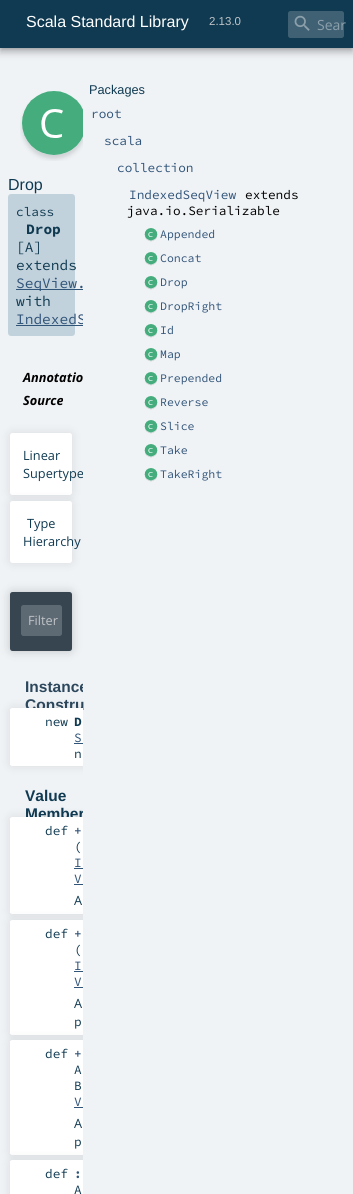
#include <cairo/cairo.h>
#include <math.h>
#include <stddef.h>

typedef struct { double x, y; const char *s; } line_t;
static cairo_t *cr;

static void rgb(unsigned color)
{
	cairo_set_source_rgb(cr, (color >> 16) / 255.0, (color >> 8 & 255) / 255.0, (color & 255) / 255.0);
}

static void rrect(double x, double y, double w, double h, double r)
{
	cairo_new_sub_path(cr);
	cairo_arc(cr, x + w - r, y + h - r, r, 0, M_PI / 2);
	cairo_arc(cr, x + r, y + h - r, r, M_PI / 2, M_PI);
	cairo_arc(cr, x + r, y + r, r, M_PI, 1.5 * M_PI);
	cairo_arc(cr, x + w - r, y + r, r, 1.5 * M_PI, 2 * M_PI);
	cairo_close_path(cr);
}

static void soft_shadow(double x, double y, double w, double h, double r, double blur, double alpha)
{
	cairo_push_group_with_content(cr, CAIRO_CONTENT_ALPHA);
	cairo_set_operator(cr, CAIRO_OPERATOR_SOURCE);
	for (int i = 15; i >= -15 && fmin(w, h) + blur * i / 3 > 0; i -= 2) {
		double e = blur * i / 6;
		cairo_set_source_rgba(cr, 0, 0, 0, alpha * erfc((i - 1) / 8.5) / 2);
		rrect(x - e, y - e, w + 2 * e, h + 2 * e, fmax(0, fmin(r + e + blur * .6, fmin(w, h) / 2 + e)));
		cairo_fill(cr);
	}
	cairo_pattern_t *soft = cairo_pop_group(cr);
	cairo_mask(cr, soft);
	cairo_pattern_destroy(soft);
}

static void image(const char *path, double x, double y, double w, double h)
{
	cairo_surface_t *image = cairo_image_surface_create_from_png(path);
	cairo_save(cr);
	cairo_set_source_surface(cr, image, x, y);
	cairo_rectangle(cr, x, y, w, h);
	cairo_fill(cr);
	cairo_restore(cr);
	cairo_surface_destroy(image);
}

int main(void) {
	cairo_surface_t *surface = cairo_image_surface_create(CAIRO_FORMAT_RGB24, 353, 1194);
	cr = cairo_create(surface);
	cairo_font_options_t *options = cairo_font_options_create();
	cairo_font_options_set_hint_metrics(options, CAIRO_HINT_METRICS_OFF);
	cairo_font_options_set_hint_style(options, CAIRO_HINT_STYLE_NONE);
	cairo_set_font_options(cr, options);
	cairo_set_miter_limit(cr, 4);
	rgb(0xf0f3f6);
	cairo_paint(cr);
	rgb(0x000000);
	soft_shadow(0, 4, 353, 48, 0, 4, 0.28);
	soft_shadow(0, 0, 353, 48, 0, 2, 0.18);
	rgb(0x103a51);
	cairo_rectangle(cr, 0, 0, 353, 48);
	cairo_fill(cr);
	rgb(0x406174);
	rrect(288, 11, 56, 27, 2.5);
	cairo_fill(cr);
	image("img/1.png", 294, 15, 16, 16);
	image("img/2.png", 20, 91, 63, 70);
	rgb(0xc2d2dc);
	rrect(8, 194, 67, 142, 3);
	cairo_fill(cr);
	rgb(0x315479);
	cairo_rectangle(cr, 16, 289, 67, 1);
	cairo_fill(cr);
	cairo_rectangle(cr, 16, 325, 67, 1);
	cairo_fill(cr);
	rgb(0x000000);
	soft_shadow(10, 433, 62, 62, 2.5, 5, 0.1);
	rgb(0xffffff);
	rrect(10, 433, 62, 62, 2.5);
	cairo_fill(cr);
	rgb(0x000000);
	soft_shadow(10, 501, 62, 62, 2.5, 5, 0.1);
	rgb(0xffffff);
	rrect(10, 501, 62, 62, 2.5);
	cairo_fill(cr);
	rgb(0x000000);
	soft_shadow(10, 592, 62, 59, 2.5, 5, 0.2);
	rgb(0x364550);
	rrect(10, 592, 62, 59, 2.5);
	cairo_fill(cr);
	rgb(0x5e6a73);
	rrect(21, 605, 41, 31, 2.5);
	cairo_fill(cr);
	cairo_save(cr);
	cairo_rectangle(cr, 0, 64, 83, 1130);
	cairo_clip(cr);
	rgb(0x000000);
	soft_shadow(10, 708, 225, 58, 2.5, 5, 0.1);
	soft_shadow(10, 817, 195, 97, 2.5, 5, 0.1);
	cairo_restore(cr);
	image("img/3.png", 144, 228, 14, 14);
	image("img/4.png", 144, 252, 14, 14);
	image("img/3.png", 144, 276, 14, 14);
	image("img/3.png", 144, 300, 14, 14);
	image("img/3.png", 144, 324, 14, 14);
	image("img/3.png", 144, 348, 14, 14);
	image("img/3.png", 144, 372, 14, 14);
	image("img/3.png", 144, 396, 14, 14);
	image("img/3.png", 144, 420, 14, 14);
	image("img/3.png", 144, 444, 14, 14);
	image("img/3.png", 144, 468, 14, 14);
	cairo_select_font_face(cr, "Liberation Sans", CAIRO_FONT_SLANT_NORMAL, CAIRO_FONT_WEIGHT_NORMAL);
	cairo_set_font_size(cr, 16);
	rgb(0xffffff);
	cairo_move_to(cr, 26, 27);
	cairo_show_text(cr, "Scala Standard Library");
	cairo_set_font_size(cr, 11.5);
	rgb(0xbfc3c7);
	cairo_move_to(cr, 209, 25);
	cairo_show_text(cr, "2.13.0");
	cairo_select_font_face(cr, "Open Sans", CAIRO_FONT_SLANT_NORMAL, CAIRO_FONT_WEIGHT_NORMAL);
	cairo_set_font_size(cr, 14);
	rgb(0x8ca0ac);
	cairo_move_to(cr, 317, 30);
	cairo_show_text(cr, "Sear");
	cairo_select_font_face(cr, "Liberation Sans", CAIRO_FONT_SLANT_NORMAL, CAIRO_FONT_WEIGHT_NORMAL);
	cairo_set_font_size(cr, 16);
	rgb(0x103a51);
	cairo_move_to(cr, 8, 190);
	cairo_show_text(cr, "Drop");
	cairo_select_font_face(cr, "Source Code Pro", CAIRO_FONT_SLANT_NORMAL, CAIRO_FONT_WEIGHT_NORMAL);
	cairo_set_font_size(cr, 12.75);
	cairo_move_to(cr, 16, 216);
	cairo_show_text(cr, "class");
	cairo_select_font_face(cr, "Source Code Pro", CAIRO_FONT_SLANT_NORMAL, CAIRO_FONT_WEIGHT_BOLD);
	cairo_set_font_size(cr, 14.5);
	cairo_move_to(cr, 26, 234);
	cairo_show_text(cr, "Drop");
	cairo_select_font_face(cr, "Source Code Pro", CAIRO_FONT_SLANT_NORMAL, CAIRO_FONT_WEIGHT_NORMAL);
	cairo_move_to(cr, 16, 252);
	cairo_show_text(cr, "[A]");
	cairo_move_to(cr, 16, 270);
	cairo_show_text(cr, "extends");
	rgb(0x315479);
	cairo_move_to(cr, 16, 288);
	cairo_show_text(cr, "SeqView.");
	rgb(0x103a51);
	cairo_move_to(cr, 16, 306);
	cairo_show_text(cr, "with");
	cairo_save(cr);
	cairo_rectangle(cr, 0, 64, 83, 1130);
	cairo_clip(cr);
	rgb(0x315479);
	cairo_move_to(cr, 16, 324);
	cairo_show_text(cr, "IndexedS");
	cairo_restore(cr);
	cairo_select_font_face(cr, "Open Sans", CAIRO_FONT_SLANT_ITALIC, CAIRO_FONT_WEIGHT_BOLD);
	cairo_set_font_size(cr, 12.75);
	rgb(0x000000);
	cairo_move_to(cr, 23, 382);
	cairo_show_text(cr, "Annotatio");
	cairo_move_to(cr, 23, 405);
	cairo_show_text(cr, "Source");
	cairo_select_font_face(cr, "Open Sans", CAIRO_FONT_SLANT_NORMAL, CAIRO_FONT_WEIGHT_NORMAL);
	rgb(0x103a51);
	cairo_move_to(cr, 23, 460);
	cairo_show_text(cr, "Linear");
	cairo_save(cr);
	cairo_rectangle(cr, 0, 64, 83, 1130);
	cairo_clip(cr);
	cairo_move_to(cr, 23, 478);
	cairo_show_text(cr, "Supertype");
	cairo_restore(cr);
	cairo_move_to(cr, 27, 528);
	cairo_show_text(cr, "Type");
	cairo_move_to(cr, 23, 546);
	cairo_show_text(cr, "Hierarchy");
	rgb(0xbfc3c7);
	cairo_move_to(cr, 28, 625);
	cairo_show_text(cr, "Filter");
	cairo_save(cr);
	cairo_rectangle(cr, 0, 64, 83, 1130);
	cairo_clip(cr);
	cairo_select_font_face(cr, "Liberation Sans", CAIRO_FONT_SLANT_NORMAL, CAIRO_FONT_WEIGHT_BOLD);
	cairo_set_font_size(cr, 15.5);
	rgb(0x2c475c);
	cairo_move_to(cr, 25, 692);
	cairo_show_text(cr, "Instance");
	cairo_restore(cr);
	cairo_select_font_face(cr, "Liberation Sans", CAIRO_FONT_SLANT_NORMAL, CAIRO_FONT_WEIGHT_BOLD);
	cairo_set_font_size(cr, 15.5);
	rgb(0x2c475c);
	cairo_move_to(cr, 25, 710);
	cairo_show_text(cr, "Constru");
	rgb(0xffffff);
	cairo_new_path(cr);
	cairo_move_to(cr, 12.5, 708);
	cairo_line_to(cr, 83, 708);
	cairo_line_to(cr, 83, 766);
	cairo_line_to(cr, 12.5, 766);
	cairo_curve_to(cr, 11, 766, 10, 765, 10, 763.5);
	cairo_line_to(cr, 10, 710.5);
	cairo_curve_to(cr, 10, 709, 11, 708, 12.5, 708);
	cairo_close_path(cr);
	cairo_fill(cr);
	cairo_rectangle(cr, 10, 709, 1, 56);
	cairo_fill(cr);
	cairo_select_font_face(cr, "Source Code Pro", CAIRO_FONT_SLANT_NORMAL, CAIRO_FONT_WEIGHT_NORMAL);
	cairo_set_font_size(cr, 12.75);
	rgb(0x103a51);
	cairo_move_to(cr, 45, 726);
	cairo_show_text(cr, "new");
	cairo_select_font_face(cr, "Source Code Pro", CAIRO_FONT_SLANT_NORMAL, CAIRO_FONT_WEIGHT_BOLD);
	cairo_move_to(cr, 74, 726);
	cairo_show_text(cr, "D");
	cairo_select_font_face(cr, "Source Code Pro", CAIRO_FONT_SLANT_NORMAL, CAIRO_FONT_WEIGHT_NORMAL);
	rgb(0x315479);
	cairo_move_to(cr, 74, 742);
	cairo_show_text(cr, "S");
	cairo_rectangle(cr, 74, 743, 9, 1);
	cairo_fill(cr);
	rgb(0x103a51);
	cairo_move_to(cr, 74, 758);
	cairo_show_text(cr, "n");
	cairo_select_font_face(cr, "Liberation Sans", CAIRO_FONT_SLANT_NORMAL, CAIRO_FONT_WEIGHT_BOLD);
	cairo_set_font_size(cr, 15.5);
	cairo_move_to(cr, 25, 801);
	cairo_show_text(cr, "Value");
	cairo_save(cr);
	cairo_rectangle(cr, 0, 64, 83, 1130);
	cairo_clip(cr);
	cairo_move_to(cr, 25, 819);
	cairo_show_text(cr, "Member");
	cairo_restore(cr);
	rgb(0xffffff);
	cairo_new_path(cr);
	cairo_move_to(cr, 12.5, 817);
	cairo_line_to(cr, 83, 817);
	cairo_line_to(cr, 83, 914);
	cairo_line_to(cr, 12.5, 914);
	cairo_curve_to(cr, 11, 914, 10, 913, 10, 911.5);
	cairo_line_to(cr, 10, 819.5);
	cairo_curve_to(cr, 10, 818, 11, 817, 12.5, 817);
	cairo_close_path(cr);
	cairo_fill(cr);
	cairo_rectangle(cr, 10, 818, 1, 95);
	cairo_fill(cr);
	cairo_select_font_face(cr, "Source Code Pro", CAIRO_FONT_SLANT_NORMAL, CAIRO_FONT_WEIGHT_NORMAL);
	cairo_set_font_size(cr, 12.75);
	rgb(0x103a51);
	cairo_move_to(cr, 45, 835);
	cairo_show_text(cr, "def");
	cairo_select_font_face(cr, "Source Code Pro SemiBold", CAIRO_FONT_SLANT_NORMAL, CAIRO_FONT_WEIGHT_NORMAL);
	rgb(0x315479);
	cairo_move_to(cr, 74, 835);
	cairo_show_text(cr, "+");
	cairo_select_font_face(cr, "Source Code Pro", CAIRO_FONT_SLANT_NORMAL, CAIRO_FONT_WEIGHT_NORMAL);
	rgb(0x103a51);
	cairo_move_to(cr, 74, 851);
	cairo_show_text(cr, "(");
	rgb(0x315479);
	cairo_move_to(cr, 74, 867);
	cairo_show_text(cr, "I");
	cairo_rectangle(cr, 74, 868, 9, 1);
	cairo_fill(cr);
	cairo_move_to(cr, 74, 883);
	cairo_show_text(cr, "V");
	cairo_rectangle(cr, 74, 884, 9, 1);
	cairo_fill(cr);
	cairo_select_font_face(cr, "Open Sans", CAIRO_FONT_SLANT_NORMAL, CAIRO_FONT_WEIGHT_NORMAL);
	rgb(0x103a51);
	cairo_move_to(cr, 74, 905);
	cairo_show_text(cr, "A");
	cairo_save(cr);
	cairo_rectangle(cr, 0, 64, 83, 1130);
	cairo_clip(cr);
	rgb(0x000000);
	soft_shadow(10, 920, 195, 115, 2.5, 5, 0.1);
	cairo_restore(cr);
	rgb(0xffffff);
	cairo_new_path(cr);
	cairo_move_to(cr, 12.5, 920);
	cairo_line_to(cr, 83, 920);
	cairo_line_to(cr, 83, 1035);
	cairo_line_to(cr, 12.5, 1035);
	cairo_curve_to(cr, 11, 1035, 10, 1034, 10, 1032.5);
	cairo_line_to(cr, 10, 922.5);
	cairo_curve_to(cr, 10, 921, 11, 920, 12.5, 920);
	cairo_close_path(cr);
	cairo_fill(cr);
	cairo_rectangle(cr, 10, 921, 1, 113);
	cairo_fill(cr);
	cairo_select_font_face(cr, "Source Code Pro", CAIRO_FONT_SLANT_NORMAL, CAIRO_FONT_WEIGHT_NORMAL);
	rgb(0x103a51);
	cairo_move_to(cr, 45, 938);
	cairo_show_text(cr, "def");
	cairo_select_font_face(cr, "Source Code Pro SemiBold", CAIRO_FONT_SLANT_NORMAL, CAIRO_FONT_WEIGHT_NORMAL);
	rgb(0x315479);
	cairo_move_to(cr, 74, 938);
	cairo_show_text(cr, "+");
	cairo_select_font_face(cr, "Source Code Pro", CAIRO_FONT_SLANT_NORMAL, CAIRO_FONT_WEIGHT_NORMAL);
	rgb(0x103a51);
	cairo_move_to(cr, 74, 954);
	cairo_show_text(cr, "(");
	rgb(0x315479);
	cairo_move_to(cr, 74, 970);
	cairo_show_text(cr, "I");
	cairo_rectangle(cr, 74, 971, 9, 1);
	cairo_fill(cr);
	cairo_move_to(cr, 74, 986);
	cairo_show_text(cr, "V");
	cairo_rectangle(cr, 74, 987, 9, 1);
	cairo_fill(cr);
	cairo_select_font_face(cr, "Open Sans", CAIRO_FONT_SLANT_NORMAL, CAIRO_FONT_WEIGHT_NORMAL);
	rgb(0x103a51);
	cairo_move_to(cr, 74, 1008);
	cairo_show_text(cr, "A");
	cairo_select_font_face(cr, "Source Code Pro", CAIRO_FONT_SLANT_NORMAL, CAIRO_FONT_WEIGHT_NORMAL);
	cairo_move_to(cr, 74, 1026);
	cairo_show_text(cr, "p");
	cairo_save(cr);
	cairo_rectangle(cr, 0, 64, 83, 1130);
	cairo_clip(cr);
	rgb(0x000000);
	soft_shadow(10, 1040, 137, 115, 2.5, 5, 0.1);
	cairo_restore(cr);
	rgb(0xffffff);
	cairo_new_path(cr);
	cairo_move_to(cr, 12.5, 1040);
	cairo_line_to(cr, 83, 1040);
	cairo_line_to(cr, 83, 1155);
	cairo_line_to(cr, 12.5, 1155);
	cairo_curve_to(cr, 11, 1155, 10, 1154, 10, 1152.5);
	cairo_line_to(cr, 10, 1042.5);
	cairo_curve_to(cr, 10, 1041, 11, 1040, 12.5, 1040);
	cairo_close_path(cr);
	cairo_fill(cr);
	cairo_rectangle(cr, 10, 1041, 1, 113);
	cairo_fill(cr);
	rgb(0x103a51);
	cairo_move_to(cr, 45, 1058);
	cairo_show_text(cr, "def");
	cairo_select_font_face(cr, "Source Code Pro SemiBold", CAIRO_FONT_SLANT_NORMAL, CAIRO_FONT_WEIGHT_NORMAL);
	rgb(0x315479);
	cairo_move_to(cr, 74, 1058);
	cairo_show_text(cr, "+");
	cairo_select_font_face(cr, "Source Code Pro", CAIRO_FONT_SLANT_NORMAL, CAIRO_FONT_WEIGHT_NORMAL);
	rgb(0x103a51);
	cairo_move_to(cr, 74, 1074);
	cairo_show_text(cr, "A");
	cairo_move_to(cr, 74, 1090);
	cairo_show_text(cr, "B");
	rgb(0x315479);
	cairo_move_to(cr, 74, 1106);
	cairo_show_text(cr, "V");
	cairo_rectangle(cr, 74, 1107, 9, 1);
	cairo_fill(cr);
	cairo_select_font_face(cr, "Open Sans", CAIRO_FONT_SLANT_NORMAL, CAIRO_FONT_WEIGHT_NORMAL);
	rgb(0x103a51);
	cairo_move_to(cr, 74, 1128);
	cairo_show_text(cr, "A");
	cairo_select_font_face(cr, "Source Code Pro", CAIRO_FONT_SLANT_NORMAL, CAIRO_FONT_WEIGHT_NORMAL);
	cairo_move_to(cr, 74, 1146);
	cairo_show_text(cr, "p");
	cairo_save(cr);
	cairo_rectangle(cr, 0, 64, 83, 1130);
	cairo_clip(cr);
	rgb(0x000000);
	soft_shadow(10, 1160, 125, 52, 2.5, 5, 0.1);
	cairo_restore(cr);
	rgb(0xffffff);
	cairo_new_path(cr);
	cairo_move_to(cr, 12.5, 1160);
	cairo_line_to(cr, 83, 1160);
	cairo_line_to(cr, 83, 1194);
	cairo_line_to(cr, 10, 1194);
	cairo_line_to(cr, 10, 1162.5);
	cairo_curve_to(cr, 10, 1161, 11, 1160, 12.5, 1160);
	cairo_close_path(cr);
	cairo_fill(cr);
	cairo_rectangle(cr, 10, 1161, 1, 1);
	cairo_fill(cr);
	rgb(0x103a51);
	cairo_move_to(cr, 45, 1178);
	cairo_show_text(cr, "def");
	cairo_select_font_face(cr, "Source Code Pro SemiBold", CAIRO_FONT_SLANT_NORMAL, CAIRO_FONT_WEIGHT_NORMAL);
	rgb(0x315479);
	cairo_move_to(cr, 74, 1178);
	cairo_show_text(cr, ":");
	cairo_select_font_face(cr, "Source Code Pro", CAIRO_FONT_SLANT_NORMAL, CAIRO_FONT_WEIGHT_NORMAL);
	rgb(0x103a51);
	cairo_move_to(cr, 74, 1194);
	cairo_show_text(cr, "A");
	cairo_select_font_face(cr, "Liberation Sans", CAIRO_FONT_SLANT_NORMAL, CAIRO_FONT_WEIGHT_NORMAL);
	cairo_move_to(cr, 89, 94);
	cairo_show_text(cr, "Packages");
	cairo_select_font_face(cr, "Source Code Pro", CAIRO_FONT_SLANT_NORMAL, CAIRO_FONT_WEIGHT_NORMAL);
	rgb(0x315479);
	{
		static const line_t items[] = {
			{91, 118, "root"},
			{104, 145, "scala"},
			{117, 172, "collection"},
			{129, 199, "IndexedSeqView"},
		};
		for (size_t i = 0; i < sizeof items / sizeof *items; i++) {
			cairo_move_to(cr, items[i].x, items[i].y);
			cairo_show_text(cr, items[i].s);
		}
	}
	rgb(0x000000);
	cairo_move_to(cr, 245, 199);
	cairo_show_text(cr, "extends");
	cairo_move_to(cr, 127, 215);
	cairo_show_text(cr, "java.io.Serializable");
	cairo_set_font_size(cr, 11.5);
	rgb(0x315479);
	{
		static const line_t items[] = {
			{160, 238, "Appended"},
			{160, 262, "Concat"},
			{160, 286, "Drop"},
			{160, 310, "DropRight"},
			{160, 334, "Id"},
			{160, 358, "Map"},
			{160, 382, "Prepended"},
			{160, 406, "Reverse"},
			{160, 430, "Slice"},
			{160, 454, "Take"},
			{160, 478, "TakeRight"},
		};
		for (size_t i = 0; i < sizeof items / sizeof *items; i++) {
			cairo_move_to(cr, items[i].x, items[i].y);
			cairo_show_text(cr, items[i].s);
		}
	}
	cairo_surface_write_to_png(surface, "page.png");
	cairo_font_options_destroy(options);
	cairo_destroy(cr);
	cairo_surface_destroy(surface);
	return 0;
}
